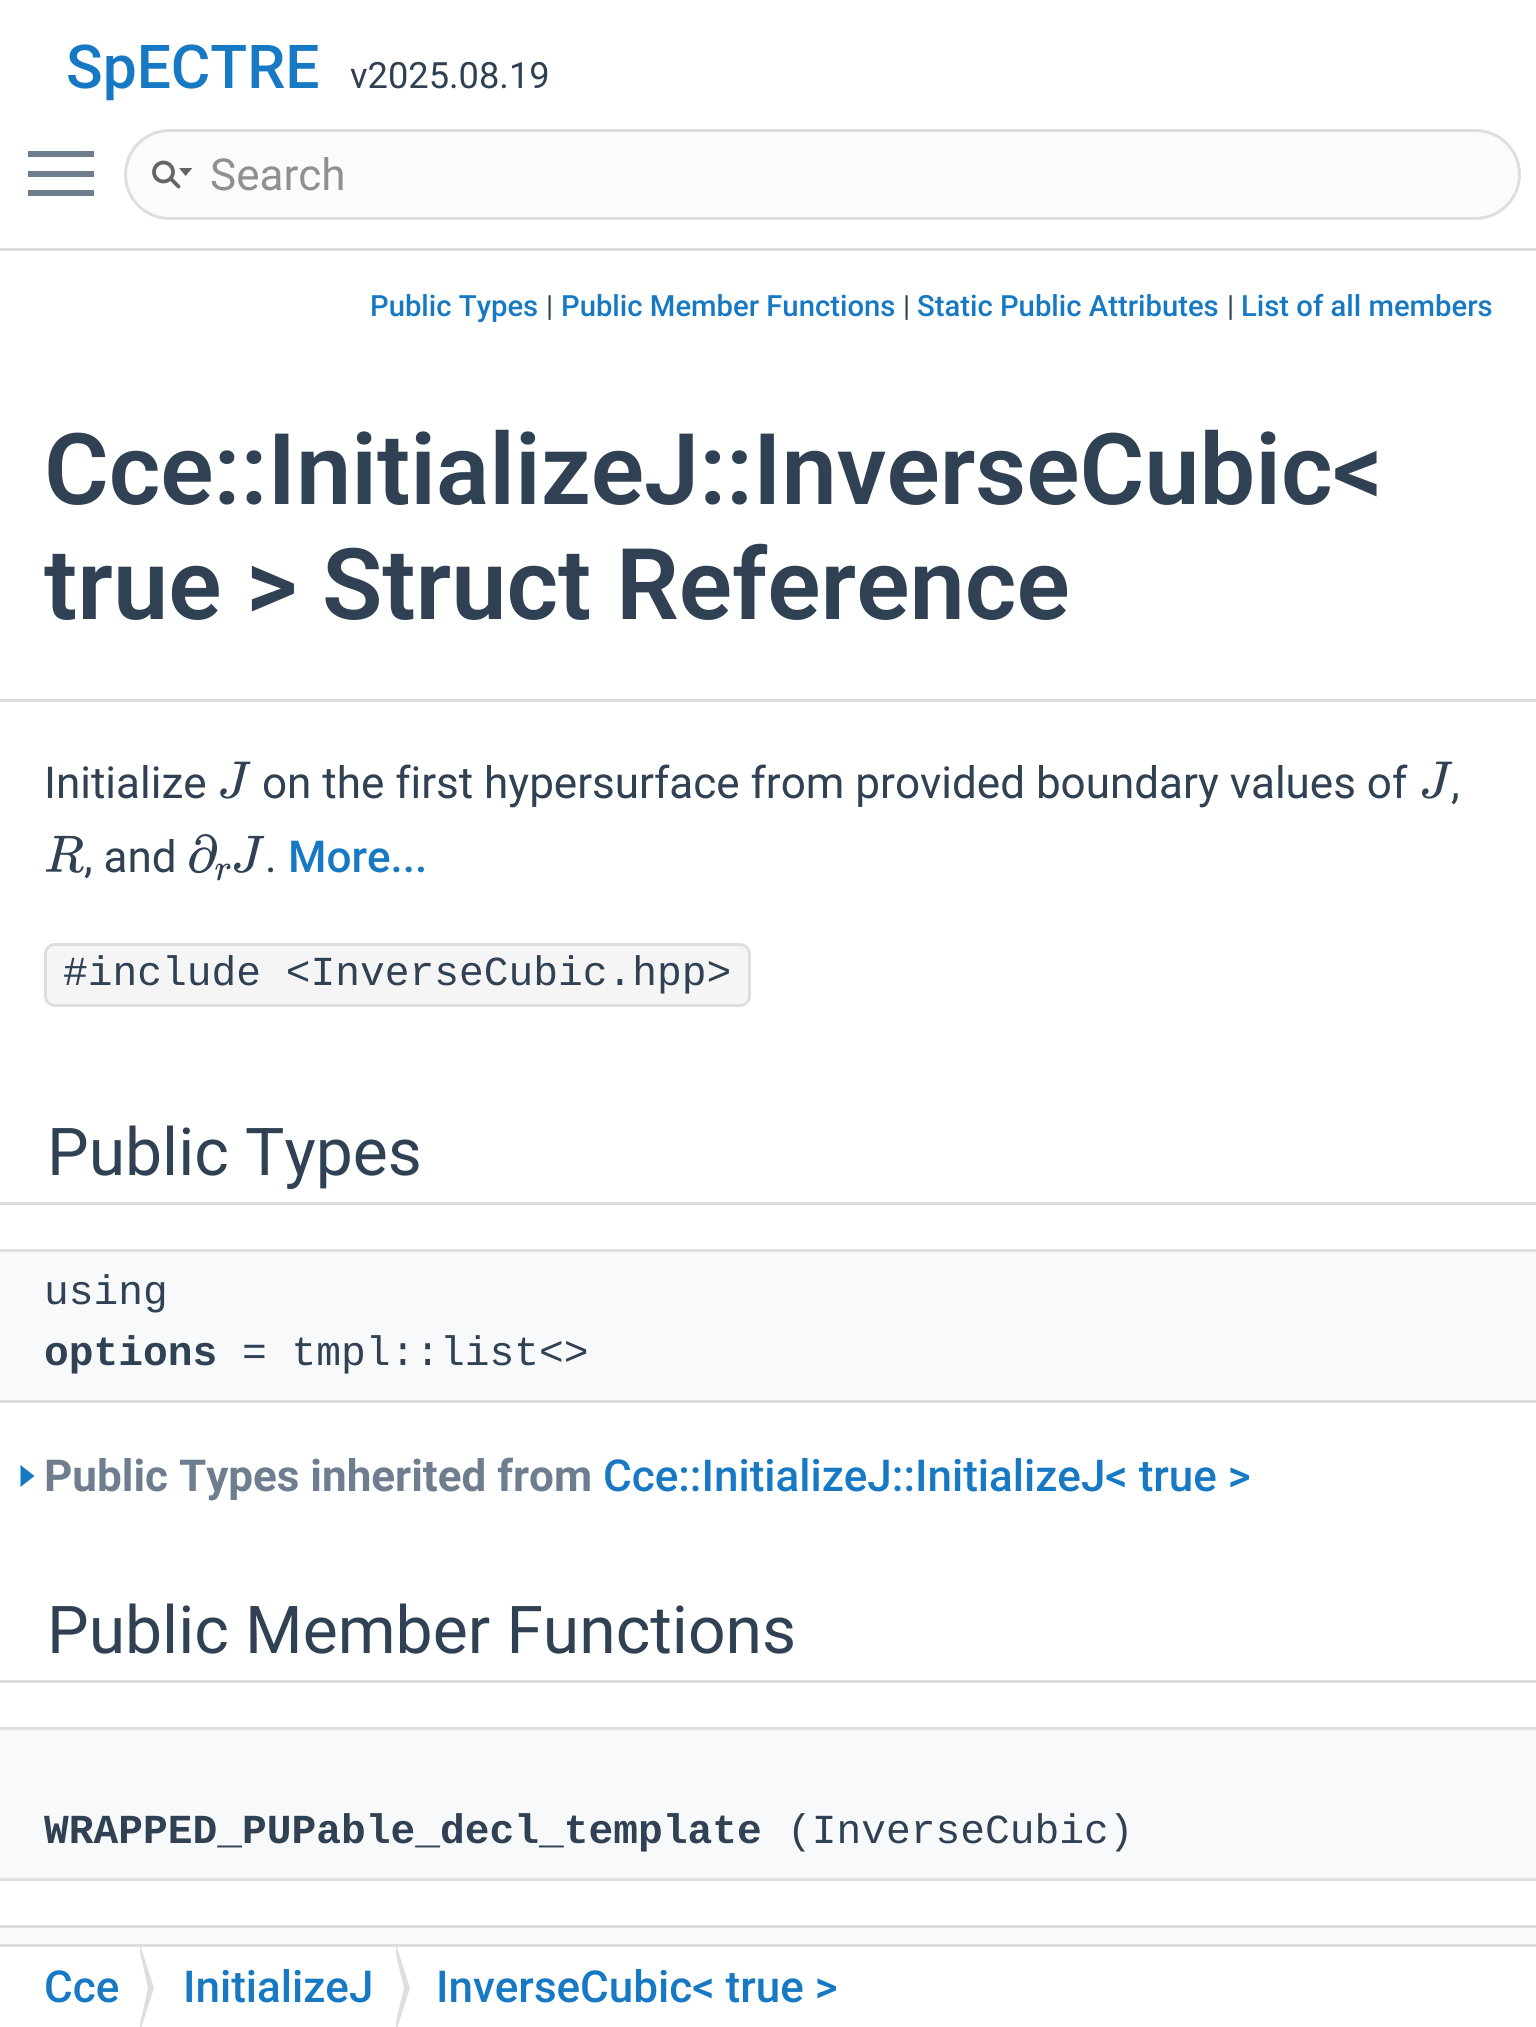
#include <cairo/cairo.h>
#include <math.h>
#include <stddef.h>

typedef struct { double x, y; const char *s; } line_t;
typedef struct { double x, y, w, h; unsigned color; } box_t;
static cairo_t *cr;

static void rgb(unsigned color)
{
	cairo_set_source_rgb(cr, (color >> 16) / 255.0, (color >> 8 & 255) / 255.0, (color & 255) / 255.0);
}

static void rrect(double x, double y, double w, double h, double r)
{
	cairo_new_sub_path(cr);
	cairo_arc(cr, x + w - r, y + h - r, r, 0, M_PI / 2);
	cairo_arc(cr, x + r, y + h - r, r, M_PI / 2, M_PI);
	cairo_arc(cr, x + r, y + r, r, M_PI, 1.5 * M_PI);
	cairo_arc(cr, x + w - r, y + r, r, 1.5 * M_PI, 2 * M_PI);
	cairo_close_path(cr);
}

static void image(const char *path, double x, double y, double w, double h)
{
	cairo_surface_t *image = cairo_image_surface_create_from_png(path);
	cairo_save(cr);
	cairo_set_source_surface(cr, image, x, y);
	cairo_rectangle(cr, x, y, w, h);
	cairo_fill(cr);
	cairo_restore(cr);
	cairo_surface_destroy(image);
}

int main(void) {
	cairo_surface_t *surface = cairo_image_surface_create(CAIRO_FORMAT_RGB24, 1536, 2027);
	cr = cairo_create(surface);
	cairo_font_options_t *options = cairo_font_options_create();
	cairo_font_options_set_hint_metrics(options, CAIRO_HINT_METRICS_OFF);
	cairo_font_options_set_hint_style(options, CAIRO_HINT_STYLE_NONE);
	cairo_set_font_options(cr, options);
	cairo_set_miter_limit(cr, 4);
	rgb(0xffffff);
	cairo_paint(cr);
	{
		static const box_t items[] = {
			{0, 248, 1536, 3, 0xdedede},
			{28, 171, 66, 6, 0x6f7e8e},
			{28, 151, 66, 6, 0x6f7e8e},
			{28, 190, 66, 6, 0x6f7e8e},
		};
		for (size_t i = 0; i < sizeof items / sizeof *items; i++) {
			rgb(items[i].color);
			cairo_rectangle(cr, items[i].x, items[i].y, items[i].w, items[i].h);
			cairo_fill(cr);
		}
	}
	rgb(0xfbfbfb);
	rrect(125.5, 130.5, 1394, 88, 44);
	cairo_fill_preserve(cr);
	rgb(0xdedede);
	cairo_set_line_width(cr, 3);
	cairo_stroke(cr);
	cairo_arc(cr, 163.5, 172, 9.5, 0, 2 * M_PI);
	rgb(0x656565);
	cairo_set_line_width(cr, 3.8);
	cairo_stroke(cr);
	cairo_new_path(cr);
	cairo_move_to(cr, 179, 168);
	cairo_line_to(cr, 185.5, 176);
	cairo_line_to(cr, 192.5, 168);
	cairo_close_path(cr);
	cairo_fill(cr);
	cairo_new_path(cr);
	cairo_move_to(cr, 171, 179);
	cairo_line_to(cr, 178.5, 186.5);
	cairo_set_line_cap(cr, CAIRO_LINE_CAP_ROUND);
	cairo_stroke(cr);
	rgb(0xdedede);
	cairo_rectangle(cr, 0, 699, 1536, 3);
	cairo_fill(cr);
	image("img/1.png", 220, 761, 31, 38);
	image("img/3.png", 45, 835, 39, 38);
	image("img/5.png", 234, 835, 31, 38);
	rgb(0xf5f5f5);
	rrect(45.5, 944.5, 704, 61, 9.5);
	cairo_fill_preserve(cr);
	rgb(0xdedede);
	cairo_set_line_width(cr, 3);
	cairo_set_line_cap(cr, CAIRO_LINE_CAP_BUTT);
	cairo_stroke(cr);
	cairo_new_path(cr);
	cairo_move_to(cr, -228, 1095);
	cairo_line_to(cr, -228, 1205);
	cairo_line_to(cr, 1216, 1205);
	cairo_line_to(cr, 1216, 1202);
	cairo_line_to(cr, 47, 1202);
	cairo_line_to(cr, 47, 1095);
	cairo_close_path(cr);
	cairo_fill(cr);
	cairo_new_path(cr);
	cairo_move_to(cr, 322, 1202);
	cairo_line_to(cr, 322, 1205);
	cairo_line_to(cr, 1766, 1205);
	cairo_line_to(cr, 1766, 1095);
	cairo_line_to(cr, 1490, 1095);
	cairo_line_to(cr, 1490, 1202);
	cairo_close_path(cr);
	cairo_fill(cr);
	rgb(0xffffff);
	cairo_new_path(cr);
	cairo_move_to(cr, -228, 1092);
	cairo_line_to(cr, -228, 1202);
	cairo_line_to(cr, 1216, 1202);
	cairo_line_to(cr, 47, 1202);
	cairo_line_to(cr, 47, 1092);
	cairo_close_path(cr);
	cairo_fill(cr);
	cairo_new_path(cr);
	cairo_move_to(cr, 322, 1202);
	cairo_line_to(cr, 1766, 1202);
	cairo_line_to(cr, 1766, 1092);
	cairo_line_to(cr, 1490, 1092);
	cairo_line_to(cr, 1490, 1202);
	cairo_close_path(cr);
	cairo_fill(cr);
	{
		static const box_t items[] = {
			{0, 1252, 1536, 148, 0xf8f9fa},
			{0, 1249, 1536, 3, 0xdedede},
			{0, 1400, 1536, 3, 0xdedede},
		};
		for (size_t i = 0; i < sizeof items / sizeof *items; i++) {
			rgb(items[i].color);
			cairo_rectangle(cr, items[i].x, items[i].y, items[i].w, items[i].h);
			cairo_fill(cr);
		}
	}
	rgb(0x1779c4);
	cairo_new_path(cr);
	cairo_move_to(cr, 20.5, 1487);
	cairo_line_to(cr, 20.5, 1465);
	cairo_line_to(cr, 34.5, 1476);
	cairo_close_path(cr);
	cairo_fill(cr);
	rgb(0xdedede);
	cairo_new_path(cr);
	cairo_move_to(cr, -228, 1573);
	cairo_line_to(cr, -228, 1683);
	cairo_line_to(cr, 1216, 1683);
	cairo_line_to(cr, 1216, 1680);
	cairo_line_to(cr, 47, 1680);
	cairo_line_to(cr, 47, 1573);
	cairo_close_path(cr);
	cairo_fill(cr);
	cairo_new_path(cr);
	cairo_move_to(cr, 322, 1680);
	cairo_line_to(cr, 322, 1683);
	cairo_line_to(cr, 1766, 1683);
	cairo_line_to(cr, 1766, 1573);
	cairo_line_to(cr, 1490, 1573);
	cairo_line_to(cr, 1490, 1680);
	cairo_close_path(cr);
	cairo_fill(cr);
	rgb(0xffffff);
	cairo_new_path(cr);
	cairo_move_to(cr, -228, 1570);
	cairo_line_to(cr, -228, 1680);
	cairo_line_to(cr, 47, 1680);
	cairo_line_to(cr, 47, 1570);
	cairo_line_to(cr, 1216, 1570);
	cairo_close_path(cr);
	cairo_fill(cr);
	cairo_new_path(cr);
	cairo_move_to(cr, 322, 1570);
	cairo_line_to(cr, 1490, 1570);
	cairo_line_to(cr, 1490, 1680);
	cairo_line_to(cr, 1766, 1680);
	cairo_line_to(cr, 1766, 1570);
	cairo_close_path(cr);
	cairo_fill(cr);
	{
		static const box_t items[] = {
			{0, 1730, 1536, 148, 0xf8f9fa},
			{0, 1727, 1536, 3, 0xdedede},
			{0, 1878, 1536, 3, 0xdedede},
			{0, 1928, 1536, 16, 0xf8f9fa},
			{0, 1925, 1536, 3, 0xdedede},
			{0, 1944, 1536, 3, 0xdedede},
		};
		for (size_t i = 0; i < sizeof items / sizeof *items; i++) {
			rgb(items[i].color);
			cairo_rectangle(cr, items[i].x, items[i].y, items[i].w, items[i].h);
			cairo_fill(cr);
		}
	}
	cairo_save(cr);
	cairo_rectangle(cr, 0, 1947, 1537, 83);
	cairo_clip(cr);
	cairo_new_path(cr);
	cairo_move_to(cr, 140, 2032);
	cairo_line_to(cr, 140, 1944);
	cairo_line_to(cr, 154, 1988);
	cairo_close_path(cr);
	cairo_fill(cr);
	rgb(0xffffff);
	cairo_new_path(cr);
	cairo_move_to(cr, 135, 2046);
	cairo_line_to(cr, 135, 1930);
	cairo_line_to(cr, 148, 1988);
	cairo_close_path(cr);
	cairo_fill(cr);
	rgb(0xdedede);
	cairo_new_path(cr);
	cairo_move_to(cr, 396, 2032);
	cairo_line_to(cr, 396, 1944);
	cairo_line_to(cr, 410, 1988);
	cairo_close_path(cr);
	cairo_fill(cr);
	rgb(0xffffff);
	cairo_new_path(cr);
	cairo_move_to(cr, 390, 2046);
	cairo_line_to(cr, 390, 1930);
	cairo_line_to(cr, 404, 1988);
	cairo_close_path(cr);
	cairo_fill(cr);
	cairo_restore(cr);
	cairo_select_font_face(cr, "Roboto Medium", CAIRO_FONT_SLANT_NORMAL, CAIRO_FONT_WEIGHT_NORMAL);
	cairo_set_font_size(cr, 60.5);
	rgb(0x1779c4);
	cairo_move_to(cr, 66, 88);
	cairo_show_text(cr, "SpECTRE");
	cairo_select_font_face(cr, "Roboto", CAIRO_FONT_SLANT_NORMAL, CAIRO_FONT_WEIGHT_NORMAL);
	cairo_set_font_size(cr, 36.25);
	rgb(0x2f4153);
	cairo_move_to(cr, 350, 88);
	cairo_show_text(cr, "v2025.08.19");
	cairo_set_font_size(cr, 44);
	rgb(0x909090);
	cairo_move_to(cr, 210, 190);
	cairo_show_text(cr, "Search");
	cairo_select_font_face(cr, "Roboto Medium", CAIRO_FONT_SLANT_NORMAL, CAIRO_FONT_WEIGHT_NORMAL);
	cairo_set_font_size(cr, 29.25);
	rgb(0x1779c4);
	cairo_move_to(cr, 370, 316);
	cairo_show_text(cr, "Public Types");
	cairo_select_font_face(cr, "Roboto", CAIRO_FONT_SLANT_NORMAL, CAIRO_FONT_WEIGHT_NORMAL);
	rgb(0x2f4153);
	cairo_move_to(cr, 546, 316);
	cairo_show_text(cr, "|");
	cairo_select_font_face(cr, "Roboto Medium", CAIRO_FONT_SLANT_NORMAL, CAIRO_FONT_WEIGHT_NORMAL);
	rgb(0x1779c4);
	cairo_move_to(cr, 561, 316);
	cairo_show_text(cr, "Public Member Functions");
	cairo_select_font_face(cr, "Roboto", CAIRO_FONT_SLANT_NORMAL, CAIRO_FONT_WEIGHT_NORMAL);
	rgb(0x2f4153);
	cairo_move_to(cr, 903, 316);
	cairo_show_text(cr, "|");
	cairo_select_font_face(cr, "Roboto Medium", CAIRO_FONT_SLANT_NORMAL, CAIRO_FONT_WEIGHT_NORMAL);
	rgb(0x1779c4);
	cairo_move_to(cr, 917, 316);
	cairo_show_text(cr, "Static Public Attributes");
	cairo_select_font_face(cr, "Roboto", CAIRO_FONT_SLANT_NORMAL, CAIRO_FONT_WEIGHT_NORMAL);
	rgb(0x2f4153);
	cairo_move_to(cr, 1227, 316);
	cairo_show_text(cr, "|");
	cairo_select_font_face(cr, "Roboto Medium", CAIRO_FONT_SLANT_NORMAL, CAIRO_FONT_WEIGHT_NORMAL);
	rgb(0x1779c4);
	cairo_move_to(cr, 1241, 316);
	cairo_show_text(cr, "List of all members");
	cairo_select_font_face(cr, "Roboto SemiBold", CAIRO_FONT_SLANT_NORMAL, CAIRO_FONT_WEIGHT_NORMAL);
	cairo_set_font_size(cr, 99);
	rgb(0x2f4153);
	cairo_move_to(cr, 44, 504);
	cairo_show_text(cr, "Cce::InitializeJ::InverseCubic<");
	cairo_move_to(cr, 44, 619);
	cairo_show_text(cr, "true > Struct Reference");
	cairo_select_font_face(cr, "Roboto", CAIRO_FONT_SLANT_NORMAL, CAIRO_FONT_WEIGHT_NORMAL);
	cairo_set_font_size(cr, 44);
	{
		static const line_t items[] = {
			{44, 798, "Initialize"},
			{262, 798, "on the first hypersurface from provided boundary values of"},
			{1451, 798, ","},
		};
		for (size_t i = 0; i < sizeof items / sizeof *items; i++) {
			cairo_move_to(cr, items[i].x, items[i].y);
			cairo_show_text(cr, items[i].s);
		}
	}
	image("img/2.png", 1422, 761, 31, 38);
	cairo_move_to(cr, 84, 872);
	cairo_show_text(cr, ", and");
	cairo_select_font_face(cr, "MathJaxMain", CAIRO_FONT_SLANT_NORMAL, CAIRO_FONT_WEIGHT_NORMAL);
	cairo_set_font_size(cr, 53);
	cairo_move_to(cr, 187, 872);
	cairo_show_text(cr, "∂");
	image("img/4.png", 215, 863, 16, 18);
	cairo_select_font_face(cr, "Roboto", CAIRO_FONT_SLANT_NORMAL, CAIRO_FONT_WEIGHT_NORMAL);
	cairo_set_font_size(cr, 44);
	cairo_move_to(cr, 265, 872);
	cairo_show_text(cr, ".");
	cairo_select_font_face(cr, "Roboto Medium", CAIRO_FONT_SLANT_NORMAL, CAIRO_FONT_WEIGHT_NORMAL);
	rgb(0x1779c4);
	cairo_move_to(cr, 288, 872);
	cairo_show_text(cr, "More...");
	cairo_select_font_face(cr, "Liberation Mono", CAIRO_FONT_SLANT_NORMAL, CAIRO_FONT_WEIGHT_NORMAL);
	cairo_set_font_size(cr, 41.25);
	rgb(0x2f4153);
	cairo_move_to(cr, 63, 985);
	cairo_show_text(cr, "#include <InverseCubic.hpp>");
	cairo_select_font_face(cr, "Roboto", CAIRO_FONT_SLANT_NORMAL, CAIRO_FONT_WEIGHT_NORMAL);
	cairo_set_font_size(cr, 66);
	cairo_move_to(cr, 47, 1175);
	cairo_show_text(cr, "Public Types");
	cairo_select_font_face(cr, "Liberation Mono", CAIRO_FONT_SLANT_NORMAL, CAIRO_FONT_WEIGHT_NORMAL);
	cairo_set_font_size(cr, 41.25);
	cairo_move_to(cr, 44, 1304);
	cairo_show_text(cr, "using");
	cairo_select_font_face(cr, "Liberation Mono", CAIRO_FONT_SLANT_NORMAL, CAIRO_FONT_WEIGHT_BOLD);
	cairo_move_to(cr, 44, 1365);
	cairo_show_text(cr, "options");
	cairo_select_font_face(cr, "Liberation Mono", CAIRO_FONT_SLANT_NORMAL, CAIRO_FONT_WEIGHT_NORMAL);
	cairo_move_to(cr, 242, 1365);
	cairo_show_text(cr, "= tmpl::list<>");
	cairo_select_font_face(cr, "Roboto", CAIRO_FONT_SLANT_NORMAL, CAIRO_FONT_WEIGHT_BOLD);
	cairo_set_font_size(cr, 44);
	rgb(0x6f7e8e);
	cairo_move_to(cr, 44, 1491);
	cairo_show_text(cr, "Public Types inherited from");
	cairo_select_font_face(cr, "Roboto Medium", CAIRO_FONT_SLANT_NORMAL, CAIRO_FONT_WEIGHT_NORMAL);
	rgb(0x1779c4);
	cairo_move_to(cr, 603, 1491);
	cairo_show_text(cr, "Cce::InitializeJ::InitializeJ< true >");
	cairo_select_font_face(cr, "Roboto", CAIRO_FONT_SLANT_NORMAL, CAIRO_FONT_WEIGHT_NORMAL);
	cairo_set_font_size(cr, 66);
	rgb(0x2f4153);
	cairo_move_to(cr, 47, 1653);
	cairo_show_text(cr, "Public Member Functions");
	cairo_select_font_face(cr, "Liberation Mono", CAIRO_FONT_SLANT_NORMAL, CAIRO_FONT_WEIGHT_BOLD);
	cairo_set_font_size(cr, 41.25);
	cairo_move_to(cr, 44, 1843);
	cairo_show_text(cr, "WRAPPED_PUPable_decl_template");
	cairo_select_font_face(cr, "Liberation Mono", CAIRO_FONT_SLANT_NORMAL, CAIRO_FONT_WEIGHT_NORMAL);
	cairo_move_to(cr, 787, 1843);
	cairo_show_text(cr, "(InverseCubic)");
	cairo_select_font_face(cr, "Roboto Medium", CAIRO_FONT_SLANT_NORMAL, CAIRO_FONT_WEIGHT_NORMAL);
	cairo_set_font_size(cr, 44);
	rgb(0x1779c4);
	{
		static const line_t items[] = {
			{44, 2002, "Cce"},
			{183, 2002, "InitializeJ"},
			{436, 2002, "InverseCubic< true >"},
		};
		for (size_t i = 0; i < sizeof items / sizeof *items; i++) {
			cairo_move_to(cr, items[i].x, items[i].y);
			cairo_show_text(cr, items[i].s);
		}
	}
	cairo_surface_write_to_png(surface, "page.png");
	cairo_font_options_destroy(options);
	cairo_destroy(cr);
	cairo_surface_destroy(surface);
	return 0;
}
